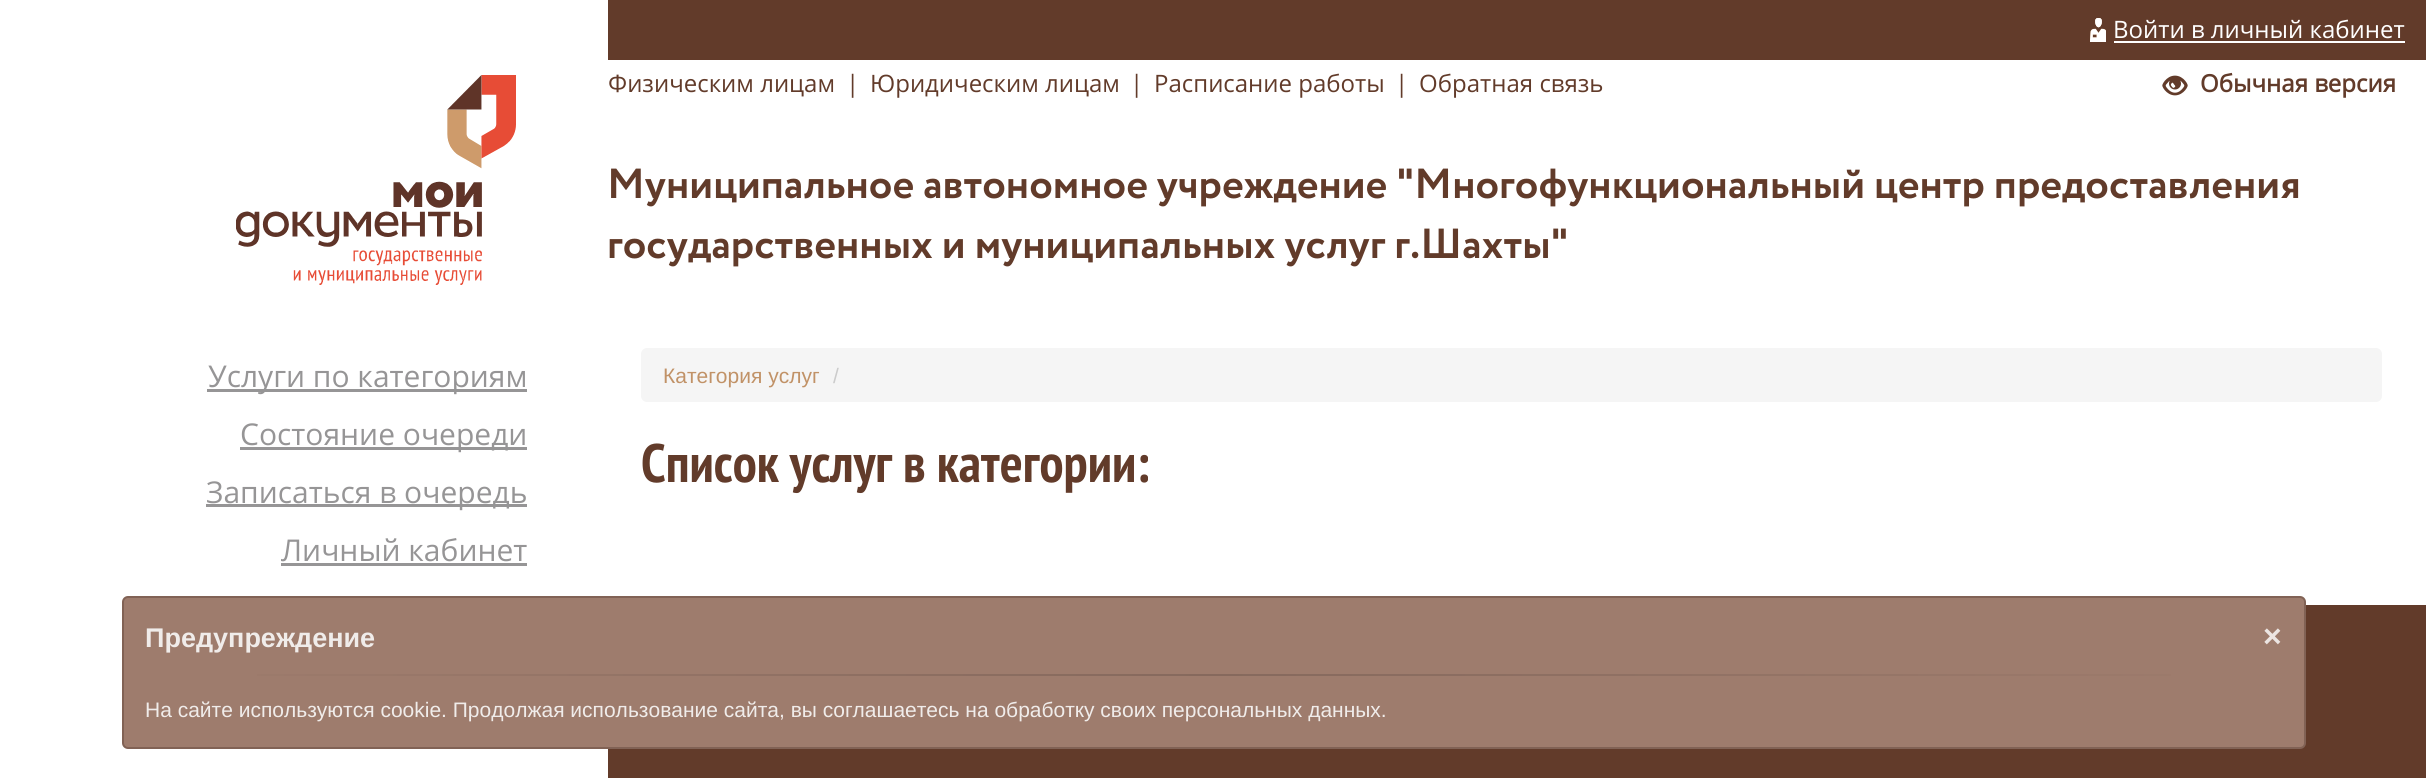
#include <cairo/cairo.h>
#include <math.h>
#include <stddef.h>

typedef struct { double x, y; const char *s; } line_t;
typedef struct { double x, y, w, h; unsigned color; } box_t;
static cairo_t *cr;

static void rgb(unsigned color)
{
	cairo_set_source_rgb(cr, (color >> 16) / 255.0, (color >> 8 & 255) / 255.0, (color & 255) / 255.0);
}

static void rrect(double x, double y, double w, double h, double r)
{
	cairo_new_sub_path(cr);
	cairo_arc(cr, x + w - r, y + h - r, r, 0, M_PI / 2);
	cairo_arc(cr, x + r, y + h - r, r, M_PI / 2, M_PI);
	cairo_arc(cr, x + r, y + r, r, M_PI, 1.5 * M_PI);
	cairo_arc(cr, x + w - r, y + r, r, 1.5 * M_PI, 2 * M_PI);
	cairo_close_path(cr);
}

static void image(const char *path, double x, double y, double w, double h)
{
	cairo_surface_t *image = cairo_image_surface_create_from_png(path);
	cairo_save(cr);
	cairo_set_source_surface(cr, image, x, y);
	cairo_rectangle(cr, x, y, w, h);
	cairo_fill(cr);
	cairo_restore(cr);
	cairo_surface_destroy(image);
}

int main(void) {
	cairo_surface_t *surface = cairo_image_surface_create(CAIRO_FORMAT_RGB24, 2426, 778);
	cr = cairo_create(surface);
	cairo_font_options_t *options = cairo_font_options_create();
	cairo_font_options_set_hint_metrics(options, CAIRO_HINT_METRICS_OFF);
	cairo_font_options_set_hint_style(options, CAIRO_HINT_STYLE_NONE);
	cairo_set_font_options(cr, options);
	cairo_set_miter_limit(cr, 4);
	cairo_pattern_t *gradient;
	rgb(0xffffff);
	cairo_paint(cr);
	rgb(0x623b2a);
	cairo_rectangle(cr, 608, 0, 1818, 60);
	cairo_fill(cr);
	image("img/1.png", 2090, 18, 16, 24);
	rgb(0xffffff);
	cairo_rectangle(cr, 2114, 41, 291, 2);
	cairo_fill(cr);
	image("img/2.png", 236, 75, 280, 210);
	image("img/3.png", 2162, 75, 26, 21);
	{
		static const box_t items[] = {
			{207, 389, 320, 3, 0x969596},
			{240, 447, 287, 3, 0x969596},
			{206, 504, 321, 3, 0x969596},
			{281, 563, 246, 3, 0x969596},
		};
		for (size_t i = 0; i < sizeof items / sizeof *items; i++) {
			rgb(items[i].color);
			cairo_rectangle(cr, items[i].x, items[i].y, items[i].w, items[i].h);
			cairo_fill(cr);
		}
	}
	rgb(0xf5f5f5);
	rrect(641, 348, 1741, 54, 6);
	cairo_fill(cr);
	rgb(0x623b2a);
	cairo_rectangle(cr, 608, 605, 1818, 173);
	cairo_fill(cr);
	rgb(0x9e7c6d);
	rrect(123, 597, 2182, 151, 5);
	cairo_fill_preserve(cr);
	rgb(0x816255);
	cairo_stroke(cr);
	gradient = cairo_pattern_create_linear(146, 674, 2282, 674);
	cairo_pattern_add_color_stop_rgba(gradient, 0, 0.62, 0.486, 0.427, 1);
	cairo_pattern_add_color_stop_rgba(gradient, 0.5, 0.525, 0.412, 0.365, 1);
	cairo_pattern_add_color_stop_rgba(gradient, 1, 0.62, 0.486, 0.427, 1);
	cairo_set_source(cr, gradient);
	cairo_pattern_destroy(gradient);
	cairo_rectangle(cr, 257, 674, 1914, 2);
	cairo_fill(cr);
	cairo_select_font_face(cr, "Open Sans", CAIRO_FONT_SLANT_NORMAL, CAIRO_FONT_WEIGHT_NORMAL);
	cairo_set_font_size(cr, 24);
	rgb(0xffffff);
	cairo_move_to(cr, 2113, 38);
	cairo_show_text(cr, "Войти в личный кабинет");
	rgb(0x623b2a);
	{
		static const line_t items[] = {
			{608, 92, "Физическим лицам"},
			{846, 92, "|"},
			{870, 92, "Юридическим лицам"},
			{1130, 92, "|"},
			{1154, 92, "Расписание работы"},
			{1395, 92, "|"},
			{1419, 92, "Обратная связь"},
		};
		for (size_t i = 0; i < sizeof items / sizeof *items; i++) {
			cairo_move_to(cr, items[i].x, items[i].y);
			cairo_show_text(cr, items[i].s);
		}
	}
	cairo_select_font_face(cr, "Open Sans", CAIRO_FONT_SLANT_NORMAL, CAIRO_FONT_WEIGHT_BOLD);
	cairo_move_to(cr, 2200, 92);
	cairo_show_text(cr, "Обычная версия");
	cairo_select_font_face(cr, "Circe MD", CAIRO_FONT_SLANT_NORMAL, CAIRO_FONT_WEIGHT_BOLD);
	cairo_set_font_size(cr, 42);
	cairo_move_to(cr, 607, 198);
	cairo_show_text(cr, "Муниципальное автономное учреждение \"Многофункциональный центр предоставления");
	cairo_move_to(cr, 607, 258);
	cairo_show_text(cr, "государственных и муниципальных услуг г.Шахты\"");
	cairo_select_font_face(cr, "Open Sans", CAIRO_FONT_SLANT_NORMAL, CAIRO_FONT_WEIGHT_NORMAL);
	cairo_set_font_size(cr, 30);
	rgb(0x969596);
	{
		static const line_t items[] = {
			{208, 387, "Услуги по категориям"},
			{240, 445, "Состояние очереди"},
			{206, 503, "Записаться в очередь"},
			{281, 561, "Личный кабинет"},
		};
		for (size_t i = 0; i < sizeof items / sizeof *items; i++) {
			cairo_move_to(cr, items[i].x, items[i].y);
			cairo_show_text(cr, items[i].s);
		}
	}
	cairo_select_font_face(cr, "Liberation Sans", CAIRO_FONT_SLANT_NORMAL, CAIRO_FONT_WEIGHT_NORMAL);
	cairo_set_font_size(cr, 21);
	rgb(0xc19267);
	cairo_move_to(cr, 663, 383);
	cairo_show_text(cr, "Категория услуг");
	rgb(0xcccccc);
	cairo_move_to(cr, 833, 383);
	cairo_show_text(cr, "/");
	cairo_select_font_face(cr, "PT Sans Narrow", CAIRO_FONT_SLANT_NORMAL, CAIRO_FONT_WEIGHT_BOLD);
	cairo_set_font_size(cr, 54);
	rgb(0x623b2a);
	cairo_move_to(cr, 641, 482);
	cairo_show_text(cr, "Список услуг в категории:");
	cairo_select_font_face(cr, "Liberation Sans", CAIRO_FONT_SLANT_NORMAL, CAIRO_FONT_WEIGHT_BOLD);
	cairo_set_font_size(cr, 27);
	rgb(0xf0ecea);
	cairo_move_to(cr, 145, 647);
	cairo_show_text(cr, "Предупреждение");
	cairo_set_font_size(cr, 32);
	rgb(0xece5e2);
	cairo_move_to(cr, 2263, 647);
	cairo_show_text(cr, "×");
	cairo_select_font_face(cr, "Liberation Sans", CAIRO_FONT_SLANT_NORMAL, CAIRO_FONT_WEIGHT_NORMAL);
	cairo_set_font_size(cr, 21);
	rgb(0xf0ecea);
	cairo_move_to(cr, 145, 717);
	cairo_show_text(cr, "На сайте используются cookie. Продолжая использование сайта, вы соглашаетесь на обработку своих персональных данных.");
	cairo_surface_write_to_png(surface, "page.png");
	cairo_font_options_destroy(options);
	cairo_destroy(cr);
	cairo_surface_destroy(surface);
	return 0;
}
